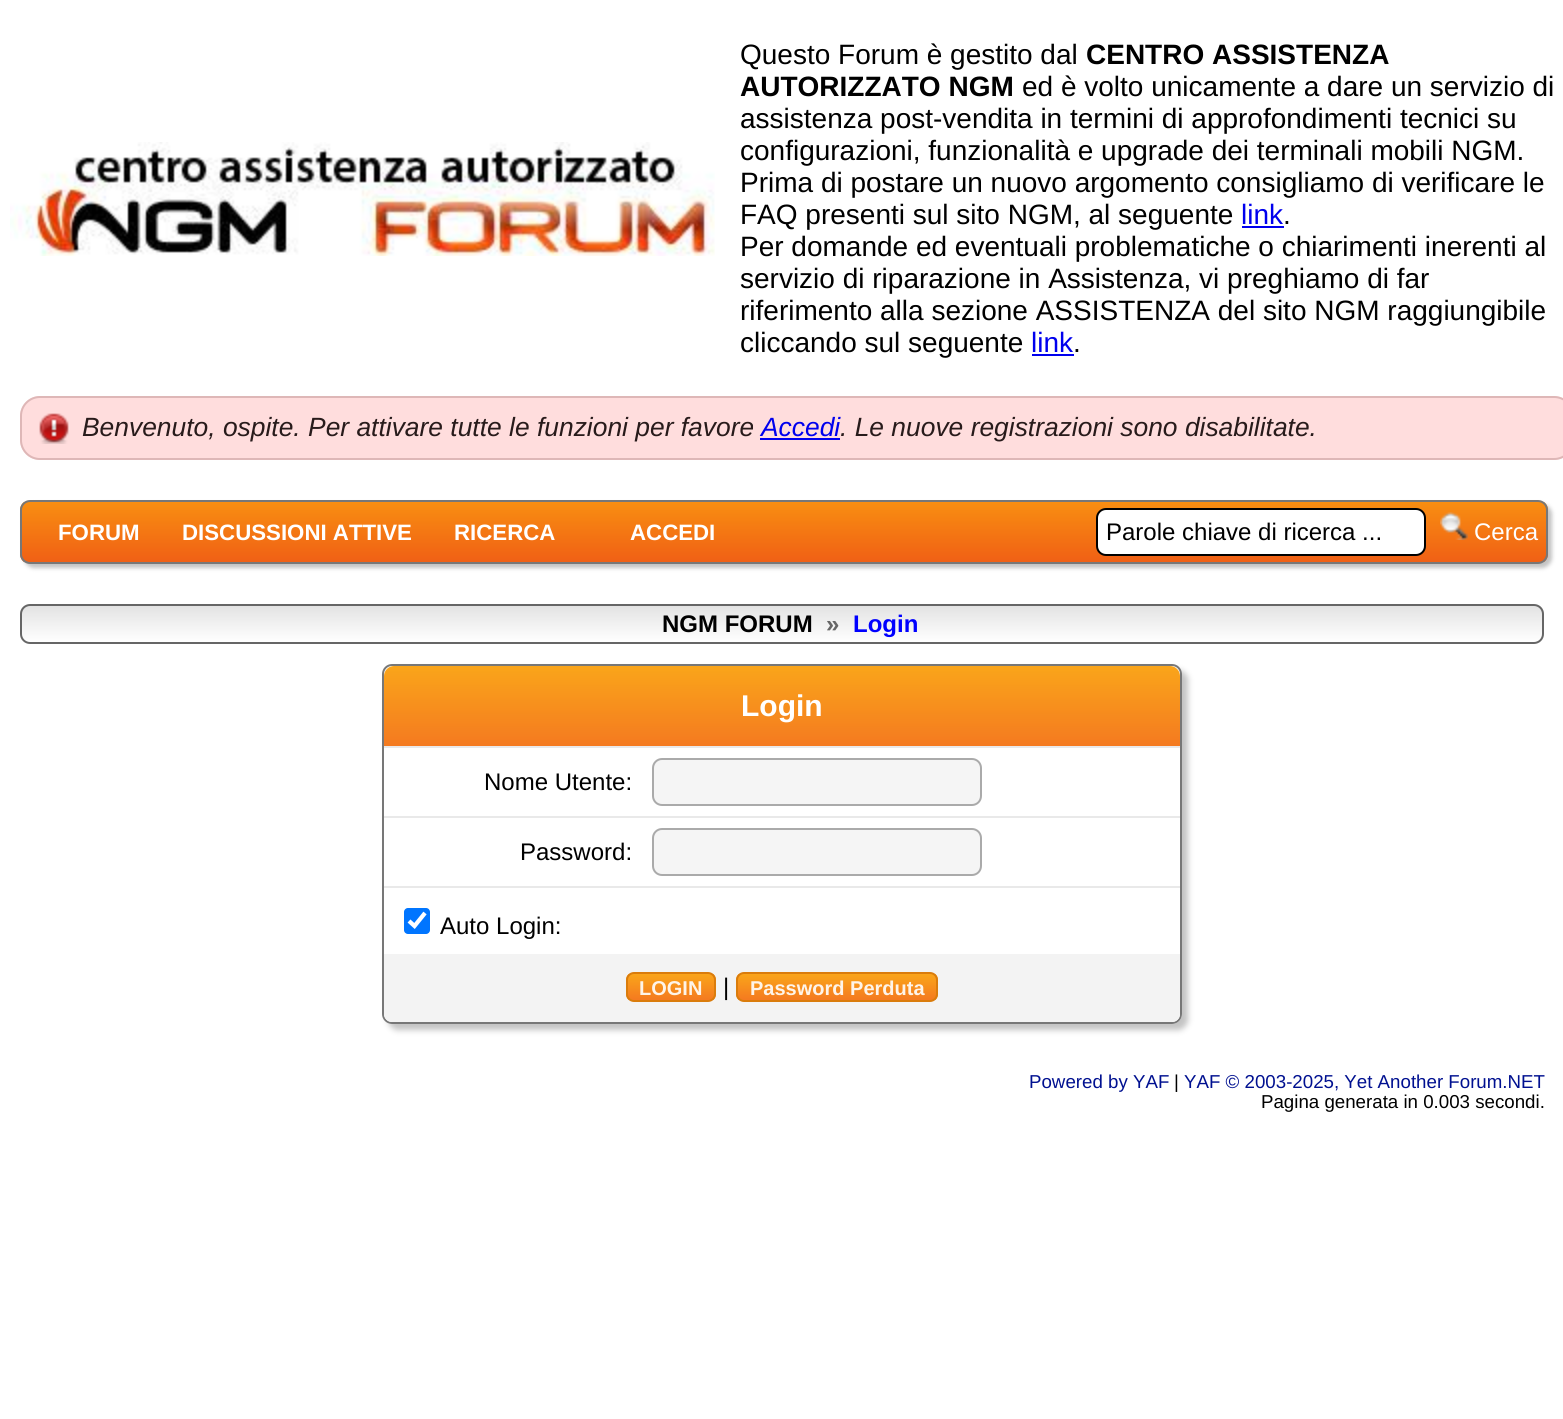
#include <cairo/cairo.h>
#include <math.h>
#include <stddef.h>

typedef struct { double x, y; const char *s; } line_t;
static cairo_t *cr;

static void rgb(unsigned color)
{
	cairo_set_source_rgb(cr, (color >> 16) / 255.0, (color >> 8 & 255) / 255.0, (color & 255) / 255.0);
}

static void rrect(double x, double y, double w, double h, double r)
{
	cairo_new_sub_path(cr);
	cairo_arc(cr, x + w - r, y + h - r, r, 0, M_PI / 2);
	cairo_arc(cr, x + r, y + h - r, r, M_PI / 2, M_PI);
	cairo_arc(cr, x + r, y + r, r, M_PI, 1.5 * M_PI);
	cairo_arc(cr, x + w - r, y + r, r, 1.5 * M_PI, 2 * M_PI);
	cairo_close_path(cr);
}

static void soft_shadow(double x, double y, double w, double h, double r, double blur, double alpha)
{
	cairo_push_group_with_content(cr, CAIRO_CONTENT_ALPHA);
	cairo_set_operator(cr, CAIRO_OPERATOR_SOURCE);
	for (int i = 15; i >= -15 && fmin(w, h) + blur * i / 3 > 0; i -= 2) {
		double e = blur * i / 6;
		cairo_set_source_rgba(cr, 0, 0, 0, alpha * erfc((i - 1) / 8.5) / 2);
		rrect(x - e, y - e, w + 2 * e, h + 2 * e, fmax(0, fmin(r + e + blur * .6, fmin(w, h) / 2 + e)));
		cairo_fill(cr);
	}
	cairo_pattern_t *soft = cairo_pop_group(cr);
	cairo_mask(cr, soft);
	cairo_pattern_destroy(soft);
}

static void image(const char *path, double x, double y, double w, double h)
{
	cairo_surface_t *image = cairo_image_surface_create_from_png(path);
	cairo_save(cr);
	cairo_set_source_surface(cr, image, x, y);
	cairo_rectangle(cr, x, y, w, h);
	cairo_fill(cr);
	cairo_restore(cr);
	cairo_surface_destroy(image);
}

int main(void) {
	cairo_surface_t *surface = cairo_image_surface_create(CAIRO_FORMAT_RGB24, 1563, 1419);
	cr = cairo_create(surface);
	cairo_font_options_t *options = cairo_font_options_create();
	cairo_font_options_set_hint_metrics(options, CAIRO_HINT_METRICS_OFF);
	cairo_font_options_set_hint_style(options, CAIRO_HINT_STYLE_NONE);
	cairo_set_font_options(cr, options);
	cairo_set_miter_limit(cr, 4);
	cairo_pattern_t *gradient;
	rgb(0xffffff);
	cairo_paint(cr);
	image("img/1.png", 10, 142, 705, 114);
	rgb(0x0000ee);
	cairo_rectangle(cr, 1242, 226, 42, 2);
	cairo_fill(cr);
	cairo_rectangle(cr, 1032, 354, 42, 2);
	cairo_fill(cr);
	rgb(0xffdddd);
	rrect(20, 396, 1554, 64, 20);
	cairo_fill(cr);
	image("img/2.png", 39, 413, 30, 31);
	rrect(21, 397, 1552, 62, 19);
	rgb(0xdeb7b7);
	cairo_stroke(cr);
	rgb(0x0000ee);
	cairo_rectangle(cr, 760, 438, 80, 2);
	cairo_fill(cr);
	rgb(0xc3c3c3);
	soft_shadow(24, 504, 1528, 64, 10, 2, 1);
	cairo_save(cr);
	rrect(20, 500, 1528, 64, 10);
	cairo_clip(cr);
	gradient = cairo_pattern_create_linear(22, 502, 22, 562);
	cairo_pattern_add_color_stop_rgba(gradient, 0, 0.973, 0.557, 0.067, 1);
	cairo_pattern_add_color_stop_rgba(gradient, 1, 0.941, 0.376, 0.082, 1);
	cairo_set_source(cr, gradient);
	cairo_pattern_destroy(gradient);
	cairo_rectangle(cr, 20, 502, 1528, 60);
	cairo_fill(cr);
	cairo_restore(cr);
	rrect(21, 501, 1526, 62, 9);
	rgb(0x777777);
	cairo_stroke(cr);
	rgb(0xffffff);
	rrect(1097, 509, 328, 46, 9);
	cairo_fill_preserve(cr);
	rgb(0x000000);
	cairo_stroke(cr);
	image("img/3.png", 1440, 512, 28, 28);
	cairo_save(cr);
	rrect(20, 604, 1524, 40, 10);
	cairo_clip(cr);
	gradient = cairo_pattern_create_linear(22, 606, 22, 642);
	cairo_pattern_add_color_stop_rgba(gradient, 0, 0.89, 0.89, 0.89, 1);
	cairo_pattern_add_color_stop_rgba(gradient, 1, 1, 1, 1, 1);
	cairo_set_source(cr, gradient);
	cairo_pattern_destroy(gradient);
	cairo_rectangle(cr, 20, 606, 1524, 36);
	cairo_fill(cr);
	cairo_restore(cr);
	rrect(21, 605, 1522, 38, 9);
	rgb(0x666666);
	cairo_stroke(cr);
	cairo_save(cr);
	cairo_set_fill_rule(cr, CAIRO_FILL_RULE_EVEN_ODD);
	cairo_new_path(cr);
	cairo_move_to(cr, 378, 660);
	cairo_line_to(cr, 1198, 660);
	cairo_line_to(cr, 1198, 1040);
	cairo_line_to(cr, 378, 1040);
	cairo_close_path(cr);
	cairo_move_to(cr, 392, 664);
	cairo_line_to(cr, 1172, 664);
	cairo_curve_to(cr, 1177.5, 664, 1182, 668.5, 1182, 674);
	cairo_line_to(cr, 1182, 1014);
	cairo_curve_to(cr, 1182, 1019.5, 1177.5, 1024, 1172, 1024);
	cairo_line_to(cr, 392, 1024);
	cairo_curve_to(cr, 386.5, 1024, 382, 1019.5, 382, 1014);
	cairo_line_to(cr, 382, 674);
	cairo_curve_to(cr, 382, 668.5, 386.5, 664, 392, 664);
	cairo_close_path(cr);
	cairo_clip(cr);
	rgb(0xc3c3c3);
	soft_shadow(388, 670, 800, 360, 10, 3, 1);
	cairo_restore(cr);
	rrect(383, 665, 798, 358, 9);
	rgb(0x777777);
	cairo_stroke(cr);
	gradient = cairo_pattern_create_linear(384, 666, 384, 746);
	cairo_pattern_add_color_stop_rgba(gradient, 0, 0.98, 0.647, 0.102, 1);
	cairo_pattern_add_color_stop_rgba(gradient, 1, 0.957, 0.478, 0.125, 1);
	cairo_set_source(cr, gradient);
	cairo_pattern_destroy(gradient);
	cairo_new_path(cr);
	cairo_move_to(cr, 394, 666);
	cairo_line_to(cr, 1170, 666);
	cairo_curve_to(cr, 1175.5, 666, 1180, 670.5, 1180, 676);
	cairo_line_to(cr, 1180, 746);
	cairo_line_to(cr, 384, 746);
	cairo_line_to(cr, 384, 676);
	cairo_curve_to(cr, 384, 670.5, 388.5, 666, 394, 666);
	cairo_close_path(cr);
	cairo_fill(cr);
	rgb(0xe9e9e9);
	cairo_rectangle(cr, 384, 746, 796, 2);
	cairo_fill(cr);
	rgb(0xf5f5f5);
	rrect(653, 759, 328, 46, 9);
	cairo_fill_preserve(cr);
	rgb(0xaaaaaa);
	cairo_stroke(cr);
	rgb(0xe9e9e9);
	cairo_rectangle(cr, 384, 816, 796, 2);
	cairo_fill(cr);
	rgb(0xf5f5f5);
	rrect(653, 829, 328, 46, 9);
	cairo_fill_preserve(cr);
	rgb(0xaaaaaa);
	cairo_stroke(cr);
	rgb(0xe9e9e9);
	cairo_rectangle(cr, 384, 886, 796, 2);
	cairo_fill(cr);
	rgb(0x0075ff);
	rrect(404, 908, 26, 26, 4);
	cairo_fill(cr);
	cairo_new_path(cr);
	cairo_move_to(cr, 409, 921);
	cairo_line_to(cr, 414.5, 926);
	cairo_line_to(cr, 425, 913);
	rgb(0xffffff);
	cairo_set_line_width(cr, 4.2);
	cairo_stroke(cr);
	rgb(0xf3f3f3);
	cairo_new_path(cr);
	cairo_move_to(cr, 384, 954);
	cairo_line_to(cr, 1180, 954);
	cairo_line_to(cr, 1180, 1014);
	cairo_curve_to(cr, 1180, 1018.5, 1176.5, 1022, 1172, 1022);
	cairo_line_to(cr, 392, 1022);
	cairo_curve_to(cr, 387.5, 1022, 384, 1018.5, 384, 1014);
	cairo_close_path(cr);
	cairo_fill(cr);
	cairo_save(cr);
	rrect(626, 972, 90, 30, 8);
	cairo_clip(cr);
	gradient = cairo_pattern_create_linear(628, 974, 628, 1000);
	cairo_pattern_add_color_stop_rgba(gradient, 0, 0.98, 0.647, 0.102, 1);
	cairo_pattern_add_color_stop_rgba(gradient, 1, 0.957, 0.478, 0.125, 1);
	cairo_set_source(cr, gradient);
	cairo_pattern_destroy(gradient);
	cairo_rectangle(cr, 626, 974, 90, 26);
	cairo_fill(cr);
	cairo_restore(cr);
	rrect(627, 973, 88, 28, 7);
	rgb(0xda7c0c);
	cairo_set_line_width(cr, 2);
	cairo_stroke(cr);
	cairo_save(cr);
	rrect(736, 972, 202, 30, 8);
	cairo_clip(cr);
	gradient = cairo_pattern_create_linear(738, 974, 738, 1000);
	cairo_pattern_add_color_stop_rgba(gradient, 0, 0.98, 0.647, 0.102, 1);
	cairo_pattern_add_color_stop_rgba(gradient, 1, 0.957, 0.478, 0.125, 1);
	cairo_set_source(cr, gradient);
	cairo_pattern_destroy(gradient);
	cairo_rectangle(cr, 736, 974, 202, 26);
	cairo_fill(cr);
	cairo_restore(cr);
	rrect(737, 973, 200, 28, 7);
	cairo_stroke(cr);
	cairo_select_font_face(cr, "Liberation Sans", CAIRO_FONT_SLANT_NORMAL, CAIRO_FONT_WEIGHT_NORMAL);
	cairo_set_font_size(cr, 28);
	rgb(0x000000);
	cairo_move_to(cr, 740, 64);
	cairo_show_text(cr, "Questo Forum è gestito dal");
	cairo_select_font_face(cr, "Liberation Sans", CAIRO_FONT_SLANT_NORMAL, CAIRO_FONT_WEIGHT_BOLD);
	cairo_move_to(cr, 1086, 64);
	cairo_show_text(cr, "CENTRO ASSISTENZA");
	cairo_move_to(cr, 740, 96);
	cairo_show_text(cr, "AUTORIZZATO NGM");
	cairo_select_font_face(cr, "Liberation Sans", CAIRO_FONT_SLANT_NORMAL, CAIRO_FONT_WEIGHT_NORMAL);
	{
		static const line_t items[] = {
			{1022, 96, "ed è volto unicamente a dare un servizio di"},
			{740, 128, "assistenza post-vendita in termini di approfondimenti tecnici su"},
			{740, 160, "configurazioni, funzionalità e upgrade dei terminali mobili NGM."},
			{740, 192, "Prima di postare un nuovo argomento consigliamo di verificare le"},
			{740, 224, "FAQ presenti sul sito NGM, al seguente"},
		};
		for (size_t i = 0; i < sizeof items / sizeof *items; i++) {
			cairo_move_to(cr, items[i].x, items[i].y);
			cairo_show_text(cr, items[i].s);
		}
	}
	rgb(0x0000ee);
	cairo_move_to(cr, 1241, 224);
	cairo_show_text(cr, "link");
	rgb(0x000000);
	{
		static const line_t items[] = {
			{1283, 224, "."},
			{740, 256, "Per domande ed eventuali problematiche o chiarimenti inerenti al"},
			{740, 288, "servizio di riparazione in Assistenza, vi preghiamo di far"},
			{740, 320, "riferimento alla sezione ASSISTENZA del sito NGM raggiungibile"},
			{740, 352, "cliccando sul seguente"},
		};
		for (size_t i = 0; i < sizeof items / sizeof *items; i++) {
			cairo_move_to(cr, items[i].x, items[i].y);
			cairo_show_text(cr, items[i].s);
		}
	}
	rgb(0x0000ee);
	cairo_move_to(cr, 1031, 352);
	cairo_show_text(cr, "link");
	rgb(0x000000);
	cairo_move_to(cr, 1073, 352);
	cairo_show_text(cr, ".");
	cairo_select_font_face(cr, "Liberation Sans", CAIRO_FONT_SLANT_ITALIC, CAIRO_FONT_WEIGHT_NORMAL);
	cairo_set_font_size(cr, 26.4);
	rgb(0x281b1b);
	cairo_move_to(cr, 82, 436);
	cairo_show_text(cr, "Benvenuto, ospite. Per attivare tutte le funzioni per favore");
	rgb(0x0000ee);
	cairo_move_to(cr, 761, 436);
	cairo_show_text(cr, "Accedi");
	rgb(0x281b1b);
	cairo_move_to(cr, 840, 436);
	cairo_show_text(cr, ". Le nuove registrazioni sono disabilitate.");
	cairo_select_font_face(cr, "Liberation Sans", CAIRO_FONT_SLANT_NORMAL, CAIRO_FONT_WEIGHT_BOLD);
	cairo_set_font_size(cr, 22.25);
	rgb(0xffffff);
	{
		static const line_t items[] = {
			{58, 540, "FORUM"},
			{182, 540, "DISCUSSIONI ATTIVE"},
			{454, 540, "RICERCA"},
			{630, 540, "ACCEDI"},
		};
		for (size_t i = 0; i < sizeof items / sizeof *items; i++) {
			cairo_move_to(cr, items[i].x, items[i].y);
			cairo_show_text(cr, items[i].s);
		}
	}
	cairo_select_font_face(cr, "Liberation Sans", CAIRO_FONT_SLANT_NORMAL, CAIRO_FONT_WEIGHT_NORMAL);
	cairo_set_font_size(cr, 24);
	rgb(0x000000);
	cairo_move_to(cr, 1106, 540);
	cairo_show_text(cr, "Parole chiave di ricerca ...");
	rgb(0xffffff);
	cairo_move_to(cr, 1474, 540);
	cairo_show_text(cr, "Cerca");
	cairo_select_font_face(cr, "Liberation Sans", CAIRO_FONT_SLANT_NORMAL, CAIRO_FONT_WEIGHT_BOLD);
	rgb(0x000000);
	cairo_move_to(cr, 662, 632);
	cairo_show_text(cr, "NGM FORUM");
	rgb(0x666666);
	cairo_move_to(cr, 826, 632);
	cairo_show_text(cr, "»");
	rgb(0x0000ff);
	cairo_move_to(cr, 853, 632);
	cairo_show_text(cr, "Login");
	cairo_set_font_size(cr, 30);
	rgb(0xffffff);
	cairo_move_to(cr, 741, 716);
	cairo_show_text(cr, "Login");
	cairo_select_font_face(cr, "Liberation Sans", CAIRO_FONT_SLANT_NORMAL, CAIRO_FONT_WEIGHT_NORMAL);
	cairo_set_font_size(cr, 24);
	rgb(0x000000);
	{
		static const line_t items[] = {
			{484, 790, "Nome Utente:"},
			{520, 860, "Password:"},
			{440, 934, "Auto Login:"},
		};
		for (size_t i = 0; i < sizeof items / sizeof *items; i++) {
			cairo_move_to(cr, items[i].x, items[i].y);
			cairo_show_text(cr, items[i].s);
		}
	}
	cairo_select_font_face(cr, "Liberation Sans", CAIRO_FONT_SLANT_NORMAL, CAIRO_FONT_WEIGHT_BOLD);
	cairo_set_font_size(cr, 20);
	rgb(0xfef4e9);
	cairo_move_to(cr, 639, 995);
	cairo_show_text(cr, "LOGIN");
	cairo_select_font_face(cr, "Liberation Sans", CAIRO_FONT_SLANT_NORMAL, CAIRO_FONT_WEIGHT_NORMAL);
	cairo_set_font_size(cr, 24);
	rgb(0x000000);
	cairo_move_to(cr, 723, 995);
	cairo_show_text(cr, "|");
	cairo_select_font_face(cr, "Liberation Sans", CAIRO_FONT_SLANT_NORMAL, CAIRO_FONT_WEIGHT_BOLD);
	cairo_set_font_size(cr, 20);
	rgb(0xfef4e9);
	cairo_move_to(cr, 750, 995);
	cairo_show_text(cr, "Password Perduta");
	cairo_select_font_face(cr, "Liberation Sans", CAIRO_FONT_SLANT_NORMAL, CAIRO_FONT_WEIGHT_NORMAL);
	cairo_set_font_size(cr, 18.7);
	rgb(0x001090);
	cairo_move_to(cr, 1029, 1088);
	cairo_show_text(cr, "Powered by YAF");
	rgb(0x000000);
	cairo_move_to(cr, 1174, 1088);
	cairo_show_text(cr, "|");
	rgb(0x001090);
	cairo_move_to(cr, 1184, 1088);
	cairo_show_text(cr, "YAF © 2003-2025, Yet Another Forum.NET");
	rgb(0x000000);
	cairo_move_to(cr, 1261, 1108);
	cairo_show_text(cr, "Pagina generata in 0.003 secondi.");
	cairo_surface_write_to_png(surface, "page.png");
	cairo_font_options_destroy(options);
	cairo_destroy(cr);
	cairo_surface_destroy(surface);
	return 0;
}
